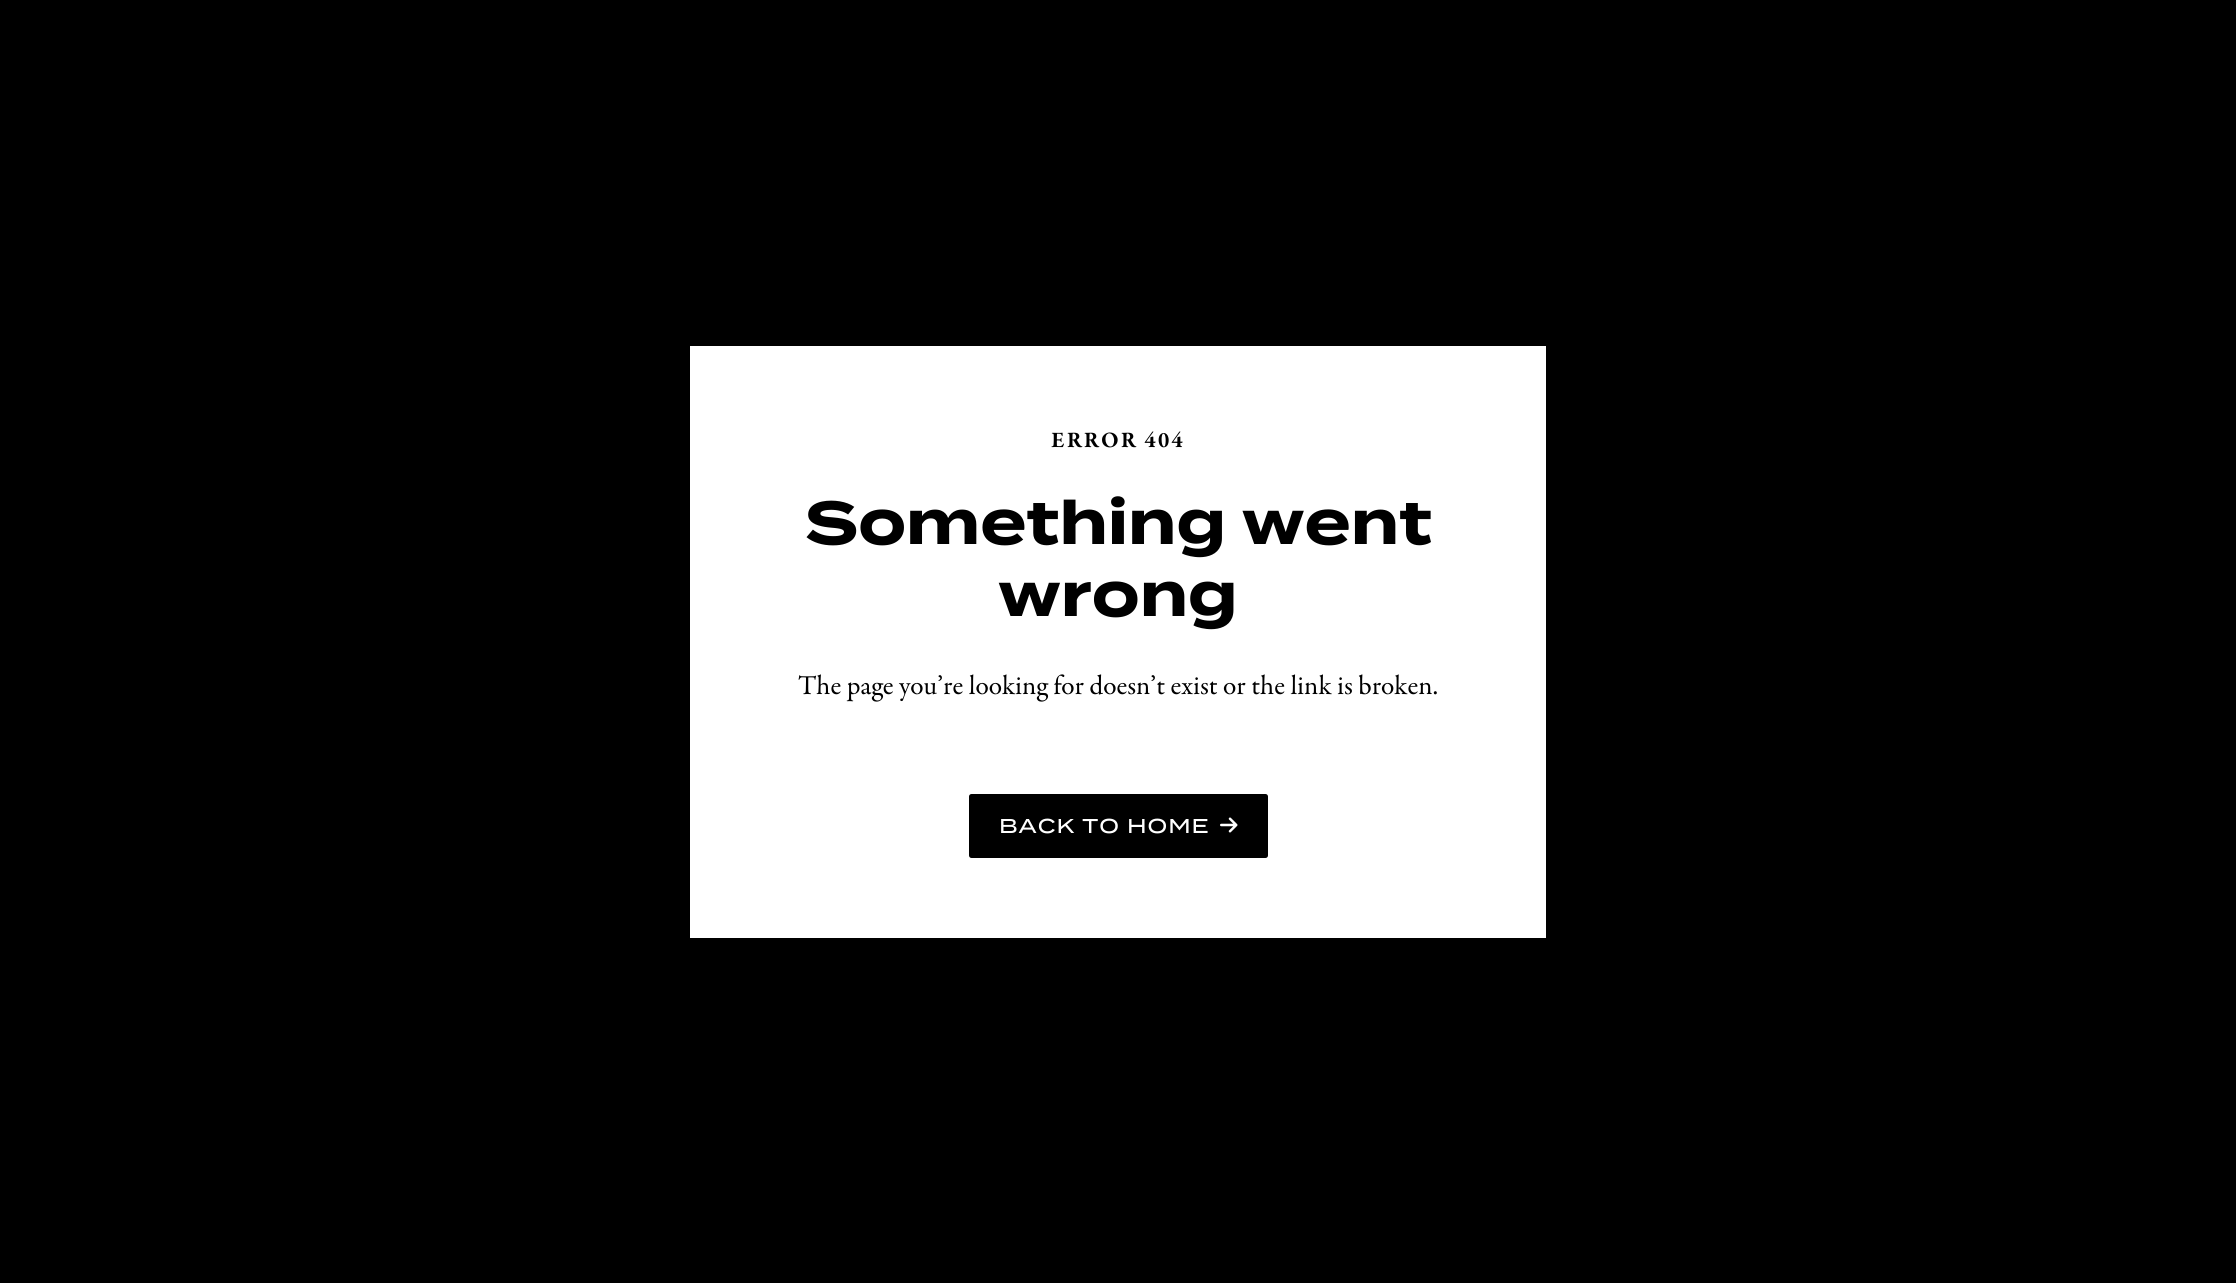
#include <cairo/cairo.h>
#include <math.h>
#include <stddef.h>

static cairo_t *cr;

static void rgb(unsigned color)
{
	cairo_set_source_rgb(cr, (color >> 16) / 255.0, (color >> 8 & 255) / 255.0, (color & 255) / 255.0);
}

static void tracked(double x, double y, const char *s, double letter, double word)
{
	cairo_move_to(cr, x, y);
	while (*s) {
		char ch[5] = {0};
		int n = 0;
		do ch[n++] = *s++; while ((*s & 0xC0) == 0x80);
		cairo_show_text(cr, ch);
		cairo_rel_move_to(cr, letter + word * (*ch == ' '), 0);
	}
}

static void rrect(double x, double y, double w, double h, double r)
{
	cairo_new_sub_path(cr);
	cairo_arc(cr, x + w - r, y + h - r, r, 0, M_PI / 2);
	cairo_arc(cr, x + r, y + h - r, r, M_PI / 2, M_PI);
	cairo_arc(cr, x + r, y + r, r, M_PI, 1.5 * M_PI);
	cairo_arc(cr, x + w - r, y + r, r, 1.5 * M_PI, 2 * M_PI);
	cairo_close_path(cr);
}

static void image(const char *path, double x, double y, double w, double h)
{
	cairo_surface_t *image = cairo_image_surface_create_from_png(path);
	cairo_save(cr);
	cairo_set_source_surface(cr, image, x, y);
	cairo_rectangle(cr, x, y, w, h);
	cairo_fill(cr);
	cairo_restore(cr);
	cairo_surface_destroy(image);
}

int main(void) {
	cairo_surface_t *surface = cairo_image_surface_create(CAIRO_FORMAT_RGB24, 2236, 1283);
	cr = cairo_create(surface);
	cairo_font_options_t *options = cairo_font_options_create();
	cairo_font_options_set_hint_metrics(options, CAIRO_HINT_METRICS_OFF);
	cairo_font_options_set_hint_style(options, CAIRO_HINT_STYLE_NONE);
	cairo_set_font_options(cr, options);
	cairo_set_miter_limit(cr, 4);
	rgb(0x000000);
	cairo_paint(cr);
	rgb(0xffffff);
	cairo_rectangle(cr, 690, 346, 856, 592);
	cairo_fill(cr);
	rgb(0x000000);
	rrect(969, 794, 299, 64, 2.5);
	cairo_fill(cr);
	image("img/1.png", 1220, 817, 18, 16);
	cairo_select_font_face(cr, "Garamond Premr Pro", CAIRO_FONT_SLANT_NORMAL, CAIRO_FONT_WEIGHT_BOLD);
	cairo_set_font_size(cr, 22.5);
	tracked(1051, 447, "ERROR 404", 2.25, 0);
	cairo_select_font_face(cr, "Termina", CAIRO_FONT_SLANT_NORMAL, CAIRO_FONT_WEIGHT_BOLD);
	cairo_set_font_size(cr, 60);
	cairo_move_to(cr, 805, 544);
	cairo_show_text(cr, "Something went");
	cairo_move_to(cr, 998, 616);
	cairo_show_text(cr, "wrong");
	cairo_select_font_face(cr, "Garamond Premr Pro", CAIRO_FONT_SLANT_NORMAL, CAIRO_FONT_WEIGHT_NORMAL);
	cairo_set_font_size(cr, 27.5);
	cairo_move_to(cr, 798, 694);
	cairo_show_text(cr, "The page you’re looking for doesn’t exist or the link is broken.");
	cairo_select_font_face(cr, "Termina Medium", CAIRO_FONT_SLANT_NORMAL, CAIRO_FONT_WEIGHT_NORMAL);
	cairo_set_font_size(cr, 20);
	rgb(0xffffff);
	tracked(999, 833, "BACK TO HOME", 1, 0);
	cairo_surface_write_to_png(surface, "page.png");
	cairo_font_options_destroy(options);
	cairo_destroy(cr);
	cairo_surface_destroy(surface);
	return 0;
}
